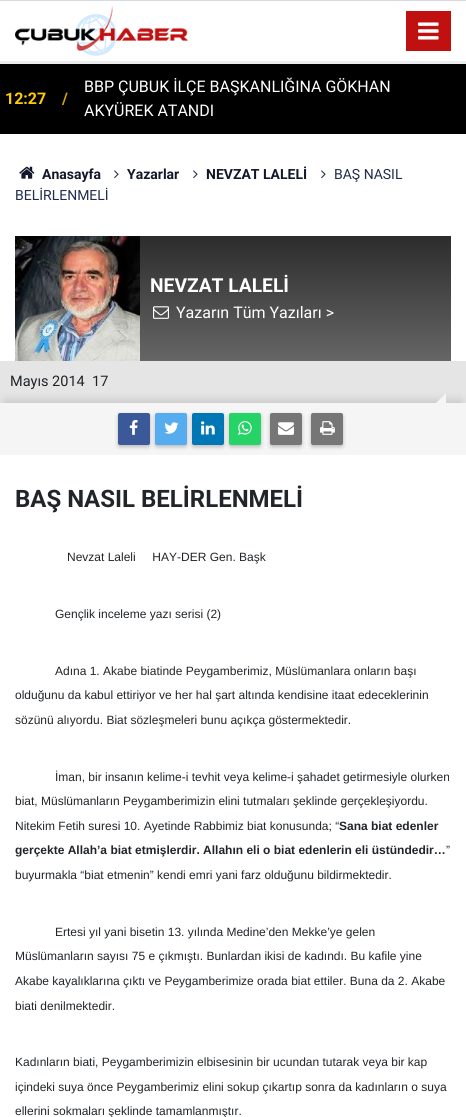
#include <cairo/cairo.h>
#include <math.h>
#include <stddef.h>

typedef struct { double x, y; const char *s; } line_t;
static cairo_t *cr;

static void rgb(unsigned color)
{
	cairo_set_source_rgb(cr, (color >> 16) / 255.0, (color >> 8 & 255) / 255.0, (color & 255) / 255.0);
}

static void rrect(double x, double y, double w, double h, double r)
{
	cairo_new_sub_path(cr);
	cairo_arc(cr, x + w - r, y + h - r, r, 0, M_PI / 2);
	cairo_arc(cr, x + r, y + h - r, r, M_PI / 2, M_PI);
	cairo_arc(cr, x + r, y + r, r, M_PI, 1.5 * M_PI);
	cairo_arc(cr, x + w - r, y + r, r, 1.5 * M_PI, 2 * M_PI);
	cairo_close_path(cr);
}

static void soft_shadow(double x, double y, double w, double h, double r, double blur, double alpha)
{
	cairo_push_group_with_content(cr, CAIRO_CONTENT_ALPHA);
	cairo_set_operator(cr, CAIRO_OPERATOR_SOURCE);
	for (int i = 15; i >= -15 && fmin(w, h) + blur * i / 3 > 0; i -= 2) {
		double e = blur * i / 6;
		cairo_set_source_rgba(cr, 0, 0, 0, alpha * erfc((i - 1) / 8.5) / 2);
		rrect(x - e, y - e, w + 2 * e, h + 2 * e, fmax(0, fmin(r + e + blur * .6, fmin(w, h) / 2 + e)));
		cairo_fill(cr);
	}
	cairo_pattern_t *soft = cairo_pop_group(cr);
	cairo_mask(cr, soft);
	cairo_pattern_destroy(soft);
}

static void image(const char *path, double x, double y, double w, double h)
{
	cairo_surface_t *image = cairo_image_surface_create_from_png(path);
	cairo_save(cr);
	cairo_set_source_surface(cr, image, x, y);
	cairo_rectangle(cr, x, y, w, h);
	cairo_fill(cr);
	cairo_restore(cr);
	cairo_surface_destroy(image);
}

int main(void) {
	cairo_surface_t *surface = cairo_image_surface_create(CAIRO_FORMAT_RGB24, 466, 1117);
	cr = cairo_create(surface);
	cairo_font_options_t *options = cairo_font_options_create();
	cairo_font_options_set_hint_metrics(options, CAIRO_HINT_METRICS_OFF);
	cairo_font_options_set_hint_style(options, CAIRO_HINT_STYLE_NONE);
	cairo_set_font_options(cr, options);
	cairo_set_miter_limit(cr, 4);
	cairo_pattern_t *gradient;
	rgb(0xffffff);
	cairo_paint(cr);
	rgb(0xd7dae1);
	cairo_rectangle(cr, 0, 0, 466, 1);
	cairo_fill(cr);
	rgb(0xecedee);
	cairo_rectangle(cr, 0, 61, 466, 3);
	cairo_fill(cr);
	image("img/1.png", 15, 6, 173, 50);
	rgb(0xc11010);
	cairo_rectangle(cr, 406, 11, 45, 40);
	cairo_fill(cr);
	image("img/2.png", 418, 22, 21, 18);
	rgb(0x000000);
	cairo_rectangle(cr, 0, 64, 466, 70);
	cairo_fill(cr);
	image("img/3.png", 19, 166, 16, 13);
	image("img/4.png", 114, 170, 5, 9);
	image("img/4.png", 193, 170, 5, 9);
	image("img/4.png", 321, 170, 5, 9);
	gradient = cairo_pattern_create_linear(233, 361, 233, 236);
	cairo_pattern_add_color_stop_rgba(gradient, 0, 0.4, 0.4, 0.4, 1);
	cairo_pattern_add_color_stop_rgba(gradient, 1, 0.173, 0.173, 0.173, 1);
	cairo_set_source(cr, gradient);
	cairo_pattern_destroy(gradient);
	cairo_rectangle(cr, 140, 236, 311, 125);
	cairo_fill(cr);
	image("img/5.png", 15, 236, 125, 125);
	image("img/6.png", 153, 306, 16, 13);
	rgb(0xe5e5e5);
	cairo_rectangle(cr, 0, 361, 466, 42);
	cairo_fill(cr);
	rgb(0x000000);
	soft_shadow(5, 401, 456, 42, 0, 5, 0.15);
	rgb(0xf5f5f5);
	cairo_rectangle(cr, 0, 403, 466, 52);
	cairo_fill(cr);
	cairo_new_path(cr);
	cairo_move_to(cr, 446, 403);
	cairo_line_to(cr, 436, 403);
	cairo_line_to(cr, 446, 393);
	cairo_close_path(cr);
	cairo_fill(cr);
	rgb(0x323232);
	soft_shadow(118, 415, 32, 32, 2, 2, 0.3);
	rgb(0x3b5999);
	rrect(118, 413, 32, 32, 2);
	cairo_fill(cr);
	image("img/7.png", 129, 420, 9, 15);
	rgb(0x323232);
	soft_shadow(155, 415, 32, 32, 2, 2, 0.3);
	rgb(0x55acee);
	rrect(155, 413, 32, 32, 2);
	cairo_fill(cr);
	image("img/8.png", 164, 422, 15, 12);
	rgb(0x323232);
	soft_shadow(192, 415, 32, 32, 2, 2, 0.3);
	rgb(0x0077b5);
	rrect(192, 413, 32, 32, 2);
	cairo_fill(cr);
	image("img/9.png", 201, 421, 14, 14);
	rgb(0x323232);
	soft_shadow(229, 415, 32, 32, 2, 2, 0.3);
	rgb(0x25d366);
	rrect(229, 413, 32, 32, 2);
	cairo_fill(cr);
	image("img/10.png", 238, 421, 14, 14);
	rgb(0x323232);
	soft_shadow(270, 415, 32, 32, 2, 2, 0.3);
	rgb(0x767676);
	rrect(270, 413, 32, 32, 2);
	cairo_fill(cr);
	image("img/11.png", 278, 422, 16, 13);
	rgb(0x323232);
	soft_shadow(311, 415, 32, 32, 2, 2, 0.3);
	rgb(0x767676);
	rrect(311, 413, 32, 32, 2);
	cairo_fill(cr);
	image("img/12.png", 320, 421, 15, 14);
	cairo_select_font_face(cr, "Roboto", CAIRO_FONT_SLANT_NORMAL, CAIRO_FONT_WEIGHT_BOLD);
	cairo_set_font_size(cr, 16);
	rgb(0xffcb05);
	cairo_move_to(cr, 5, 104);
	cairo_show_text(cr, "12:27");
	rgb(0xd1a600);
	cairo_move_to(cr, 62, 104);
	cairo_show_text(cr, "/");
	cairo_select_font_face(cr, "Roboto", CAIRO_FONT_SLANT_NORMAL, CAIRO_FONT_WEIGHT_NORMAL);
	rgb(0xffffff);
	cairo_move_to(cr, 84, 92);
	cairo_show_text(cr, "BBP ÇUBUK İLÇE BAŞKANLIĞINA GÖKHAN");
	cairo_move_to(cr, 84, 116);
	cairo_show_text(cr, "AKYÜREK ATANDI");
	cairo_select_font_face(cr, "Roboto", CAIRO_FONT_SLANT_NORMAL, CAIRO_FONT_WEIGHT_BOLD);
	cairo_set_font_size(cr, 14);
	rgb(0x12182a);
	{
		static const line_t items[] = {
			{42, 179, "Anasayfa"},
			{127, 179, "Yazarlar"},
			{206, 179, "NEVZAT LALELİ"},
		};
		for (size_t i = 0; i < sizeof items / sizeof *items; i++) {
			cairo_move_to(cr, items[i].x, items[i].y);
			cairo_show_text(cr, items[i].s);
		}
	}
	cairo_select_font_face(cr, "Roboto", CAIRO_FONT_SLANT_NORMAL, CAIRO_FONT_WEIGHT_NORMAL);
	rgb(0x212c4e);
	cairo_move_to(cr, 334, 179);
	cairo_show_text(cr, "BAŞ NASIL");
	cairo_move_to(cr, 15, 200);
	cairo_show_text(cr, "BELİRLENMELİ");
	cairo_select_font_face(cr, "Roboto", CAIRO_FONT_SLANT_NORMAL, CAIRO_FONT_WEIGHT_BOLD);
	cairo_set_font_size(cr, 19.25);
	rgb(0xffffff);
	cairo_move_to(cr, 150, 292);
	cairo_show_text(cr, "NEVZAT LALELİ");
	cairo_select_font_face(cr, "Roboto", CAIRO_FONT_SLANT_NORMAL, CAIRO_FONT_WEIGHT_NORMAL);
	cairo_set_font_size(cr, 16);
	cairo_move_to(cr, 176, 318);
	cairo_show_text(cr, "Yazarın Tüm Yazıları >");
	cairo_set_font_size(cr, 14.5);
	rgb(0x212529);
	cairo_move_to(cr, 10, 386);
	cairo_show_text(cr, "Mayıs 2014");
	cairo_move_to(cr, 92, 386);
	cairo_show_text(cr, "17");
	cairo_select_font_face(cr, "Roboto", CAIRO_FONT_SLANT_NORMAL, CAIRO_FONT_WEIGHT_BOLD);
	cairo_set_font_size(cr, 24);
	cairo_move_to(cr, 15, 507);
	cairo_show_text(cr, "BAŞ NASIL BELİRLENMELİ");
	cairo_select_font_face(cr, "Liberation Sans", CAIRO_FONT_SLANT_NORMAL, CAIRO_FONT_WEIGHT_NORMAL);
	cairo_set_font_size(cr, 12);
	{
		static const line_t items[] = {
			{67, 561, "Nevzat Laleli     HAY-DER Gen. Başk"},
			{55, 618, "Gençlik inceleme yazı serisi (2)"},
			{55, 675, "Adına 1. Akabe biatinde Peygamberimiz, Müslümanlara onların başı"},
			{15, 699, "olduğunu da kabul ettiriyor ve her hal şart altında kendisine itaat edeceklerinin"},
			{15, 724, "sözünü alıyordu. Biat sözleşmeleri bunu açıkça göstermektedir."},
			{55, 781, "İman, bir insanın kelime-i tevhit veya kelime-i şahadet getirmesiyle olurken"},
			{15, 805, "biat, Müslümanların Peygamberimizin elini tutmaları şeklinde gerçekleşiyordu."},
			{15, 830, "Nitekim Fetih suresi 10. Ayetinde Rabbimiz biat konusunda; “"},
		};
		for (size_t i = 0; i < sizeof items / sizeof *items; i++) {
			cairo_move_to(cr, items[i].x, items[i].y);
			cairo_show_text(cr, items[i].s);
		}
	}
	cairo_select_font_face(cr, "Liberation Sans", CAIRO_FONT_SLANT_NORMAL, CAIRO_FONT_WEIGHT_BOLD);
	cairo_move_to(cr, 339, 830);
	cairo_show_text(cr, "Sana biat edenler");
	cairo_move_to(cr, 15, 854);
	cairo_show_text(cr, "gerçekte Allah’a biat etmişlerdir. Allahın eli o biat edenlerin eli üstündedir…");
	cairo_select_font_face(cr, "Liberation Sans", CAIRO_FONT_SLANT_NORMAL, CAIRO_FONT_WEIGHT_NORMAL);
	{
		static const line_t items[] = {
			{446, 854, "”"},
			{15, 879, "buyurmakla “biat etmenin” kendi emri yani farz olduğunu bildirmektedir."},
			{55, 936, "Ertesi yıl yani bisetin 13. yılında Medine’den Mekke’ye gelen"},
			{15, 960, "Müslümanların sayısı 75 e çıkmıştı. Bunlardan ikisi de kadındı. Bu kafile yine"},
			{15, 985, "Akabe kayalıklarına çıktı ve Peygamberimize orada biat ettiler. Buna da 2. Akabe"},
			{15, 1010, "biati denilmektedir."},
			{15, 1066, "Kadınların biati, Peygamberimizin elbisesinin bir ucundan tutarak veya bir kap"},
			{15, 1091, "içindeki suya önce Peygamberimiz elini sokup çıkartıp sonra da kadınların o suya"},
			{15, 1115, "ellerini sokmaları şeklinde tamamlanmıştır."},
		};
		for (size_t i = 0; i < sizeof items / sizeof *items; i++) {
			cairo_move_to(cr, items[i].x, items[i].y);
			cairo_show_text(cr, items[i].s);
		}
	}
	cairo_surface_write_to_png(surface, "page.png");
	cairo_font_options_destroy(options);
	cairo_destroy(cr);
	cairo_surface_destroy(surface);
	return 0;
}
